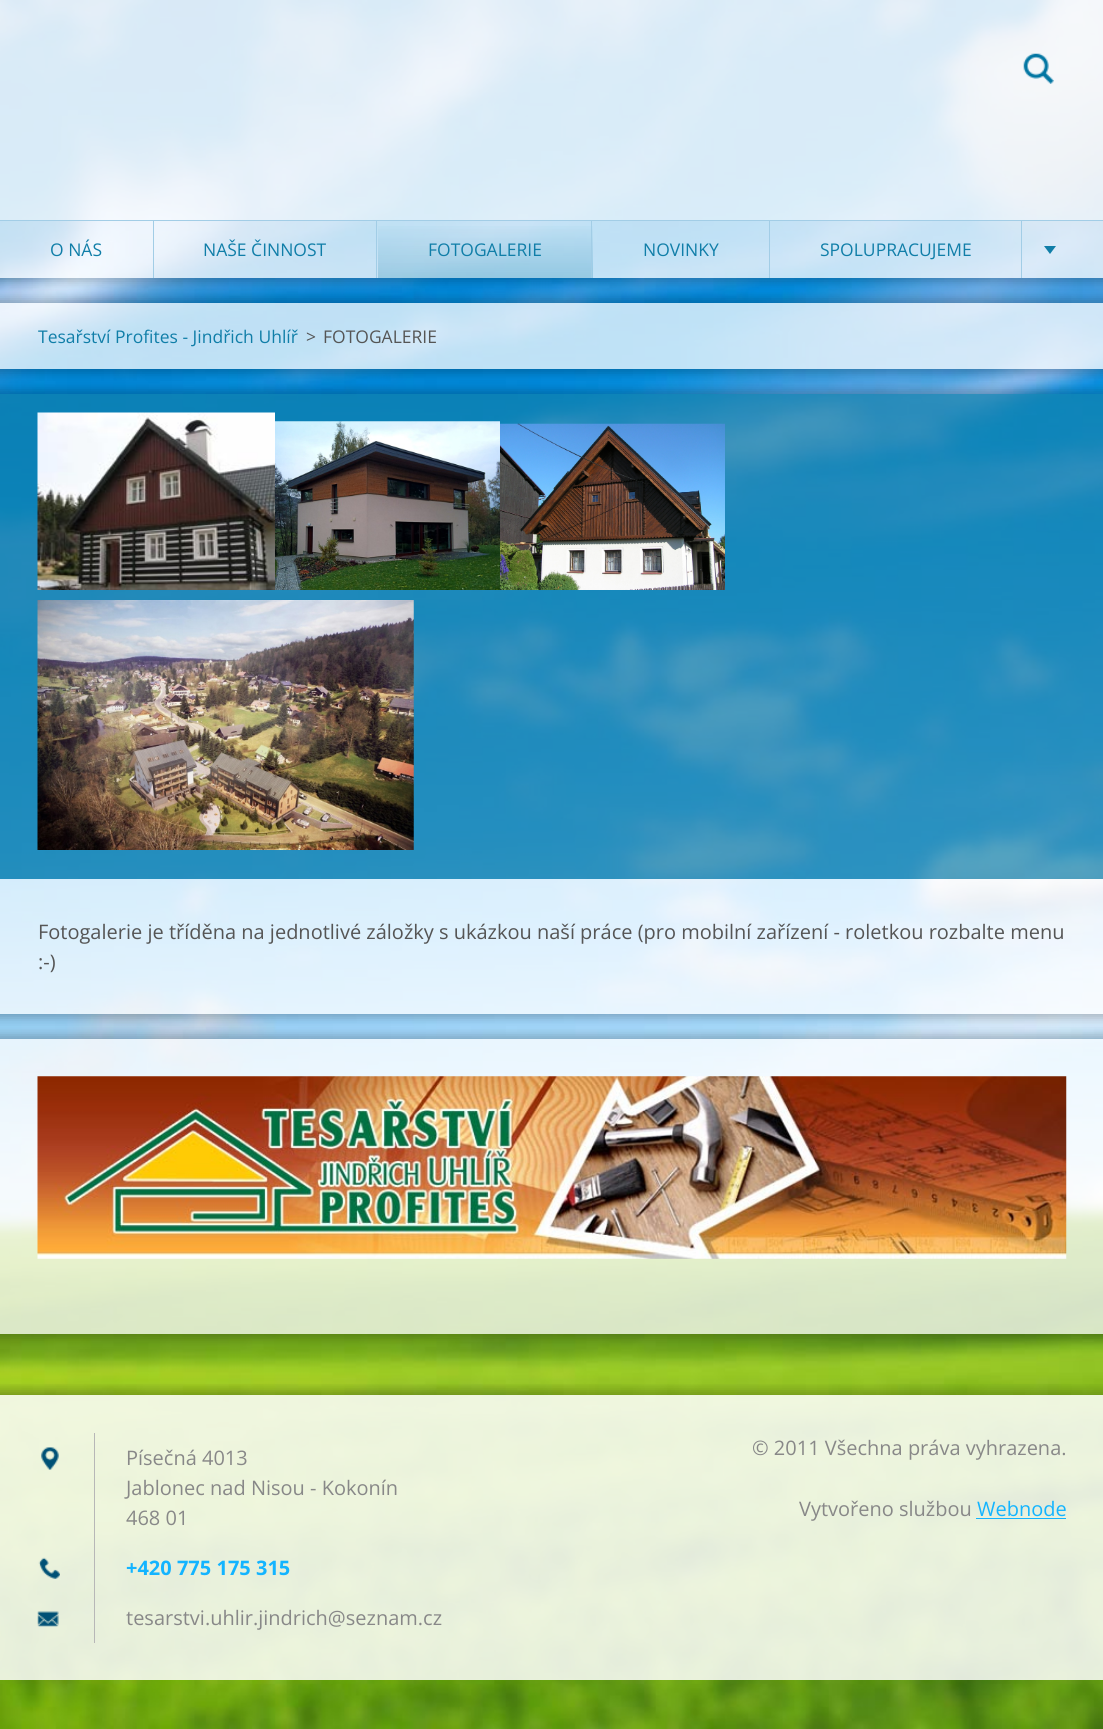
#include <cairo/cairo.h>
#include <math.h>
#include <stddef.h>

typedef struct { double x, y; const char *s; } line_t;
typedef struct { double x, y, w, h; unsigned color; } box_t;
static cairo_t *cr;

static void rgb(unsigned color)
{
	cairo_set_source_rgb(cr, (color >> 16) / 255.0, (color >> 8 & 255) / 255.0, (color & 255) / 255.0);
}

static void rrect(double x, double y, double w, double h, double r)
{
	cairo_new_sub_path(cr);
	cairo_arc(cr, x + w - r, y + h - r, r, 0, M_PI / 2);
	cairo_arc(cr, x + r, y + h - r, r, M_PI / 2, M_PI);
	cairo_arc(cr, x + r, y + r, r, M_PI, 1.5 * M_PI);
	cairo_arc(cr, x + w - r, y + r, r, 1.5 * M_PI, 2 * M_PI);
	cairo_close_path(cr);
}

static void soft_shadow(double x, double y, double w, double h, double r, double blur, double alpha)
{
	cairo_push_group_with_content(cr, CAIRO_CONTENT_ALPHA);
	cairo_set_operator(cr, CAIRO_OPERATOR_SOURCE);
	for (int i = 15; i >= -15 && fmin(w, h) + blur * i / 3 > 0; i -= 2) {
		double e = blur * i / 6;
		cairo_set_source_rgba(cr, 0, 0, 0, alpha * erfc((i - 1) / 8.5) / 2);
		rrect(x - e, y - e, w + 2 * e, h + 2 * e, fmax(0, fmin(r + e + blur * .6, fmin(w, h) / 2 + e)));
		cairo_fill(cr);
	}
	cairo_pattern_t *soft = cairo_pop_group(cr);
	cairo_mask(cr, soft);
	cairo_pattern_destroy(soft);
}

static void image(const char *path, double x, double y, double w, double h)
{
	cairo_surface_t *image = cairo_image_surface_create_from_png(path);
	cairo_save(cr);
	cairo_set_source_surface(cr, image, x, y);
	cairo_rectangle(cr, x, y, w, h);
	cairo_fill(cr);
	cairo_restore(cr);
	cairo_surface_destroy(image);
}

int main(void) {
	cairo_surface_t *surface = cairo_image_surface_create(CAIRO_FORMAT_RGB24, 1103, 1729);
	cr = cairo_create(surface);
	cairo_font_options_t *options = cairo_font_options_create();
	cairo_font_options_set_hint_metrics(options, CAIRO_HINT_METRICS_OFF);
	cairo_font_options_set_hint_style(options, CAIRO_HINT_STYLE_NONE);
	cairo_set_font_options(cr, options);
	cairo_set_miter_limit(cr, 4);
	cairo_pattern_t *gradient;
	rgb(0xffffff);
	cairo_paint(cr);
	image("img/1.png", 0, 0, 1103, 1729);
	cairo_save(cr);
	cairo_set_fill_rule(cr, CAIRO_FILL_RULE_EVEN_ODD);
	cairo_new_path(cr);
	cairo_move_to(cr, 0, 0);
	cairo_line_to(cr, 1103, 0);
	cairo_line_to(cr, 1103, 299);
	cairo_line_to(cr, 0, 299);
	cairo_close_path(cr);
	cairo_move_to(cr, 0, 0);
	cairo_line_to(cr, 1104, 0);
	cairo_line_to(cr, 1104, 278);
	cairo_line_to(cr, 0, 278);
	cairo_close_path(cr);
	cairo_clip(cr);
	rgb(0x000000);
	soft_shadow(-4, -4, 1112, 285, 0, 5.5, 0.25);
	cairo_restore(cr);
	cairo_set_source_rgba(cr, 1, 1, 1, 0.85);
	cairo_rectangle(cr, 0, 0, 1103, 220);
	cairo_fill(cr);
	image("img/2.png", 1023, 53, 31, 31);
	rgb(0xa2cde6);
	cairo_rectangle(cr, 0, 220, 1103, 1);
	cairo_fill(cr);
	cairo_set_source_rgba(cr, 1, 1, 1, 0.75);
	cairo_rectangle(cr, 0, 221, 1103, 57);
	cairo_fill(cr);
	rgb(0xa2cde6);
	cairo_rectangle(cr, 153, 221, 1, 57);
	cairo_fill(cr);
	cairo_rectangle(cr, 376, 221, 1, 57);
	cairo_fill(cr);
	gradient = cairo_pattern_create_linear(484, 221, 484, 278);
	cairo_pattern_add_color_stop_rgba(gradient, 0, 0.063, 0.494, 0.659, 0);
	cairo_pattern_add_color_stop_rgba(gradient, 1, 0.063, 0.494, 0.659, 0.25);
	cairo_set_source(cr, gradient);
	cairo_pattern_destroy(gradient);
	cairo_rectangle(cr, 378, 226, 215, 52);
	cairo_fill(cr);
	{
		static const box_t items[] = {
			{591, 221, 1, 57, 0xa2cde6},
			{769, 221, 1, 57, 0xa2cde6},
			{1021, 221, 1, 57, 0xa2cde6},
		};
		for (size_t i = 0; i < sizeof items / sizeof *items; i++) {
			rgb(items[i].color);
			cairo_rectangle(cr, items[i].x, items[i].y, items[i].w, items[i].h);
			cairo_fill(cr);
		}
	}
	rgb(0x107ea8);
	cairo_new_path(cr);
	cairo_move_to(cr, 1044, 246);
	cairo_line_to(cr, 1056, 246);
	cairo_line_to(cr, 1050, 254);
	cairo_close_path(cr);
	cairo_fill(cr);
	cairo_save(cr);
	cairo_set_fill_rule(cr, CAIRO_FILL_RULE_EVEN_ODD);
	cairo_new_path(cr);
	cairo_move_to(cr, 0, 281);
	cairo_line_to(cr, 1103, 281);
	cairo_line_to(cr, 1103, 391);
	cairo_line_to(cr, 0, 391);
	cairo_close_path(cr);
	cairo_move_to(cr, 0, 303);
	cairo_line_to(cr, 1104, 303);
	cairo_line_to(cr, 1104, 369);
	cairo_line_to(cr, 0, 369);
	cairo_close_path(cr);
	cairo_clip(cr);
	rgb(0x000000);
	soft_shadow(-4, 299, 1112, 74, 0, 5.5, 0.25);
	cairo_restore(cr);
	cairo_set_source_rgba(cr, 1, 1, 1, 0.75);
	cairo_rectangle(cr, 0, 303, 1103, 66);
	cairo_fill(cr);
	cairo_save(cr);
	cairo_set_fill_rule(cr, CAIRO_FILL_RULE_EVEN_ODD);
	cairo_new_path(cr);
	cairo_move_to(cr, 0, 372);
	cairo_line_to(cr, 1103, 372);
	cairo_line_to(cr, 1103, 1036);
	cairo_line_to(cr, 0, 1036);
	cairo_close_path(cr);
	cairo_move_to(cr, 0, 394);
	cairo_line_to(cr, 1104, 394);
	cairo_line_to(cr, 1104, 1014);
	cairo_line_to(cr, 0, 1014);
	cairo_close_path(cr);
	cairo_clip(cr);
	rgb(0x000000);
	soft_shadow(-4, 390, 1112, 628, 0, 5.5, 0.25);
	cairo_restore(cr);
	cairo_set_source_rgba(cr, 0.063, 0.494, 0.659, 0.71);
	cairo_rectangle(cr, 0, 394, 1103, 485);
	cairo_fill(cr);
	image("img/3.png", 37, 412, 238, 178);
	image("img/4.png", 275, 421, 225, 169);
	image("img/5.png", 500, 423, 225, 167);
	image("img/6.png", 37, 600, 377, 250);
	cairo_set_source_rgba(cr, 1, 1, 1, 0.75);
	cairo_rectangle(cr, 0, 879, 1103, 97);
	cairo_fill(cr);
	cairo_rectangle(cr, 0, 976, 1103, 38);
	cairo_fill(cr);
	cairo_save(cr);
	cairo_set_fill_rule(cr, CAIRO_FILL_RULE_EVEN_ODD);
	cairo_new_path(cr);
	cairo_move_to(cr, 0, 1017);
	cairo_line_to(cr, 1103, 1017);
	cairo_line_to(cr, 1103, 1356);
	cairo_line_to(cr, 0, 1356);
	cairo_close_path(cr);
	cairo_move_to(cr, 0, 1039);
	cairo_line_to(cr, 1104, 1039);
	cairo_line_to(cr, 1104, 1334);
	cairo_line_to(cr, 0, 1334);
	cairo_close_path(cr);
	cairo_clip(cr);
	rgb(0x000000);
	soft_shadow(-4, 1035, 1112, 303, 0, 5.5, 0.25);
	cairo_restore(cr);
	cairo_rectangle(cr, 0, 1039, 1103, 257);
	cairo_fill(cr);
	image("img/7.png", 37, 1076, 1030, 183);
	cairo_rectangle(cr, 0, 1296, 1103, 38);
	cairo_fill(cr);
	cairo_save(cr);
	cairo_rectangle(cr, 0, 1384, 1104, 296);
	cairo_clip(cr);
	cairo_rectangle(cr, 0, 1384, 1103, 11);
	cairo_clip(cr);
	rgb(0x000000);
	soft_shadow(-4, 1391, 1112, 293, 0, 5.5, 0.25);
	cairo_restore(cr);
	cairo_set_source_rgba(cr, 1, 1, 1, 0.85);
	cairo_rectangle(cr, 0, 1395, 1103, 285);
	cairo_fill(cr);
	image("img/8.png", 41, 1447, 18, 23);
	rgb(0xb7b7b7);
	cairo_rectangle(cr, 94, 1433, 1, 210);
	cairo_fill(cr);
	image("img/9.png", 38, 1557, 22, 22);
	image("img/10.png", 37, 1611, 22, 16);
	rgb(0x13b4ff);
	cairo_rectangle(cr, 976, 1518, 90, 1);
	cairo_fill(cr);
	cairo_select_font_face(cr, "Open Sans", CAIRO_FONT_SLANT_NORMAL, CAIRO_FONT_WEIGHT_NORMAL);
	cairo_set_font_size(cr, 17.5);
	rgb(0x107ea8);
	{
		static const line_t items[] = {
			{50, 256, "O NÁS"},
			{203, 256, "NAŠE ČINNOST"},
			{428, 256, "FOTOGALERIE"},
			{643, 256, "NOVINKY"},
			{820, 256, "SPOLUPRACUJEME"},
			{38, 343, "Tesařství Profites - Jindřich Uhlíř"},
		};
		for (size_t i = 0; i < sizeof items / sizeof *items; i++) {
			cairo_move_to(cr, items[i].x, items[i].y);
			cairo_show_text(cr, items[i].s);
		}
	}
	rgb(0x555555);
	cairo_move_to(cr, 306, 343);
	cairo_show_text(cr, ">");
	cairo_move_to(cr, 323, 343);
	cairo_show_text(cr, "FOTOGALERIE");
	cairo_set_font_size(cr, 20);
	cairo_move_to(cr, 38, 939);
	cairo_show_text(cr, "Fotogalerie je tříděna na jednotlivé záložky s ukázkou naší práce (pro mobilní zařízení - roletkou rozbalte menu");
	cairo_move_to(cr, 38, 969);
	cairo_show_text(cr, ":-)");
	rgb(0x888888);
	{
		static const line_t items[] = {
			{126, 1465, "Písečná 4013"},
			{126, 1495, "Jablonec nad Nisou - Kokonín"},
			{126, 1525, "468 01"},
		};
		for (size_t i = 0; i < sizeof items / sizeof *items; i++) {
			cairo_move_to(cr, items[i].x, items[i].y);
			cairo_show_text(cr, items[i].s);
		}
	}
	cairo_select_font_face(cr, "Open Sans", CAIRO_FONT_SLANT_NORMAL, CAIRO_FONT_WEIGHT_BOLD);
	rgb(0x13b4ff);
	cairo_move_to(cr, 126, 1575);
	cairo_show_text(cr, "+420 775 175 315");
	cairo_select_font_face(cr, "Open Sans", CAIRO_FONT_SLANT_NORMAL, CAIRO_FONT_WEIGHT_NORMAL);
	rgb(0x888888);
	{
		static const line_t items[] = {
			{126, 1625, "tesarstvi.uhlir.jindrich@seznam.cz"},
			{752, 1455, "© 2011 Všechna práva vyhrazena."},
			{799, 1516, "Vytvořeno službou"},
		};
		for (size_t i = 0; i < sizeof items / sizeof *items; i++) {
			cairo_move_to(cr, items[i].x, items[i].y);
			cairo_show_text(cr, items[i].s);
		}
	}
	rgb(0x13b4ff);
	cairo_move_to(cr, 977, 1516);
	cairo_show_text(cr, "Webnode");
	cairo_surface_write_to_png(surface, "page.png");
	cairo_font_options_destroy(options);
	cairo_destroy(cr);
	cairo_surface_destroy(surface);
	return 0;
}
